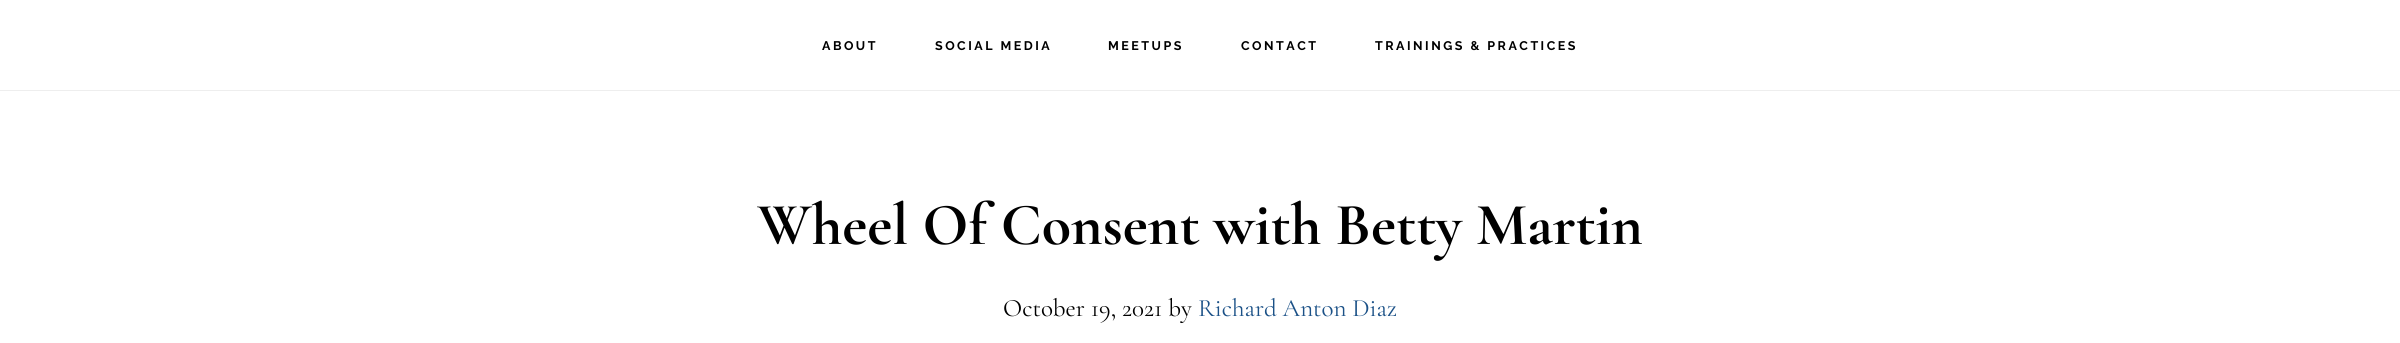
#include <cairo/cairo.h>
#include <math.h>
#include <stddef.h>

typedef struct { double x, y; const char *s; } line_t;
static cairo_t *cr;

static void rgb(unsigned color)
{
	cairo_set_source_rgb(cr, (color >> 16) / 255.0, (color >> 8 & 255) / 255.0, (color & 255) / 255.0);
}

static void tracked(double x, double y, const char *s, double letter, double word)
{
	cairo_move_to(cr, x, y);
	while (*s) {
		char ch[5] = {0};
		int n = 0;
		do ch[n++] = *s++; while ((*s & 0xC0) == 0x80);
		cairo_show_text(cr, ch);
		cairo_rel_move_to(cr, letter + word * (*ch == ' '), 0);
	}
}

int main(void) {
	cairo_surface_t *surface = cairo_image_surface_create(CAIRO_FORMAT_RGB24, 2400, 343);
	cr = cairo_create(surface);
	cairo_font_options_t *options = cairo_font_options_create();
	cairo_font_options_set_hint_metrics(options, CAIRO_HINT_METRICS_OFF);
	cairo_font_options_set_hint_style(options, CAIRO_HINT_STYLE_NONE);
	cairo_set_font_options(cr, options);
	cairo_set_miter_limit(cr, 4);
	rgb(0xffffff);
	cairo_paint(cr);
	rgb(0xeeeeee);
	cairo_rectangle(cr, 0, 90, 2400, 1);
	cairo_fill(cr);
	cairo_select_font_face(cr, "Raleway Thin", CAIRO_FONT_SLANT_NORMAL, CAIRO_FONT_WEIGHT_NORMAL);
	cairo_set_font_size(cr, 12.5);
	rgb(0x000000);
	{
		static const line_t items[] = {
			{822, 50, "ABOUT"},
			{935, 50, "SOCIAL MEDIA"},
			{1108, 50, "MEETUPS"},
			{1241, 50, "CONTACT"},
			{1375, 50, "TRAININGS & PRACTICES"},
		};
		for (size_t i = 0; i < sizeof items / sizeof *items; i++) {
			tracked(items[i].x, items[i].y, items[i].s, 2.5, 0);
		}
	}
	cairo_select_font_face(cr, "Cormorant Garamond", CAIRO_FONT_SLANT_NORMAL, CAIRO_FONT_WEIGHT_BOLD);
	cairo_set_font_size(cr, 60);
	cairo_move_to(cr, 757, 244);
	cairo_show_text(cr, "Wheel Of Consent with Betty Martin");
	cairo_select_font_face(cr, "Cormorant Garamond", CAIRO_FONT_SLANT_NORMAL, CAIRO_FONT_WEIGHT_NORMAL);
	cairo_set_font_size(cr, 25);
	cairo_move_to(cr, 1003, 316);
	cairo_show_text(cr, "October 19, 2021 by");
	rgb(0x1b5187);
	cairo_move_to(cr, 1198, 316);
	cairo_show_text(cr, "Richard Anton Diaz");
	cairo_surface_write_to_png(surface, "page.png");
	cairo_font_options_destroy(options);
	cairo_destroy(cr);
	cairo_surface_destroy(surface);
	return 0;
}
